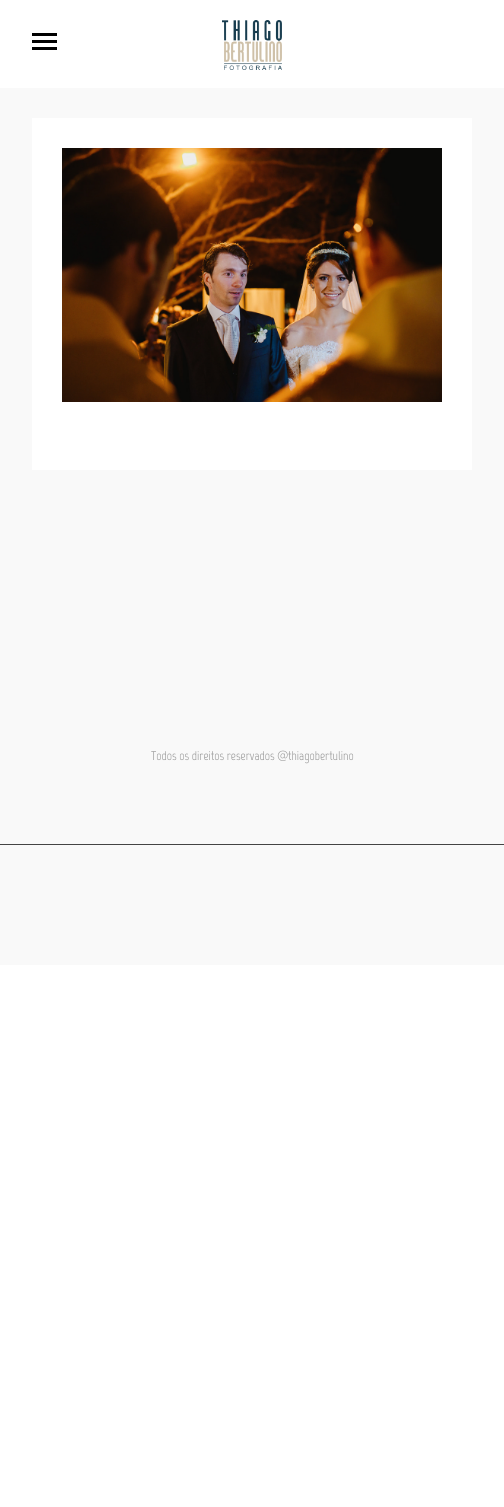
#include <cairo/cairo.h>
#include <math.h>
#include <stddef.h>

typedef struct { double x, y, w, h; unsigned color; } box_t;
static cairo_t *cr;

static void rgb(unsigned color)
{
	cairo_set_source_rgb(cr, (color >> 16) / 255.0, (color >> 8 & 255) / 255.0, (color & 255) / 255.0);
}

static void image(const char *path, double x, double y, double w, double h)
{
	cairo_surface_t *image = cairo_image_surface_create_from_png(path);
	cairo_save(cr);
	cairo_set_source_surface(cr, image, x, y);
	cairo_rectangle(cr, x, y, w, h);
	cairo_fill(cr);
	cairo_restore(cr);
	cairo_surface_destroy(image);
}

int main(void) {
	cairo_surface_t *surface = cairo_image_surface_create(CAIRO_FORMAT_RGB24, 504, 1507);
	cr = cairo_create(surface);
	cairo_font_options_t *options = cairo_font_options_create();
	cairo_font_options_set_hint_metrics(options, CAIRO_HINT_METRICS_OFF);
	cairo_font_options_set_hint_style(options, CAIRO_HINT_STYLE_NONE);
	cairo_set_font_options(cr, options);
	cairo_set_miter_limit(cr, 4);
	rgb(0xffffff);
	cairo_paint(cr);
	{
		static const box_t items[] = {
			{32, 33, 25, 3, 0x000000},
			{32, 40, 25, 3, 0x000000},
			{32, 47, 25, 3, 0x000000},
		};
		for (size_t i = 0; i < sizeof items / sizeof *items; i++) {
			rgb(items[i].color);
			cairo_rectangle(cr, items[i].x, items[i].y, items[i].w, items[i].h);
			cairo_fill(cr);
		}
	}
	image("img/1.png", 222, 20, 60, 50);
	rgb(0xf9f9f9);
	cairo_rectangle(cr, 0, 88, 504, 877);
	cairo_fill(cr);
	rgb(0xffffff);
	cairo_rectangle(cr, 32, 118, 440, 352);
	cairo_fill(cr);
	image("img/2.png", 62, 148, 380, 254);
	rgb(0x444444);
	cairo_rectangle(cr, 0, 844, 504, 1);
	cairo_fill(cr);
	cairo_select_font_face(cr, "Marvel", CAIRO_FONT_SLANT_NORMAL, CAIRO_FONT_WEIGHT_NORMAL);
	cairo_set_font_size(cr, 12.6);
	rgb(0x999999);
	cairo_move_to(cr, 151, 760);
	cairo_show_text(cr, "Todos os direitos reservados @thiagobertulino");
	cairo_surface_write_to_png(surface, "page.png");
	cairo_font_options_destroy(options);
	cairo_destroy(cr);
	cairo_surface_destroy(surface);
	return 0;
}
